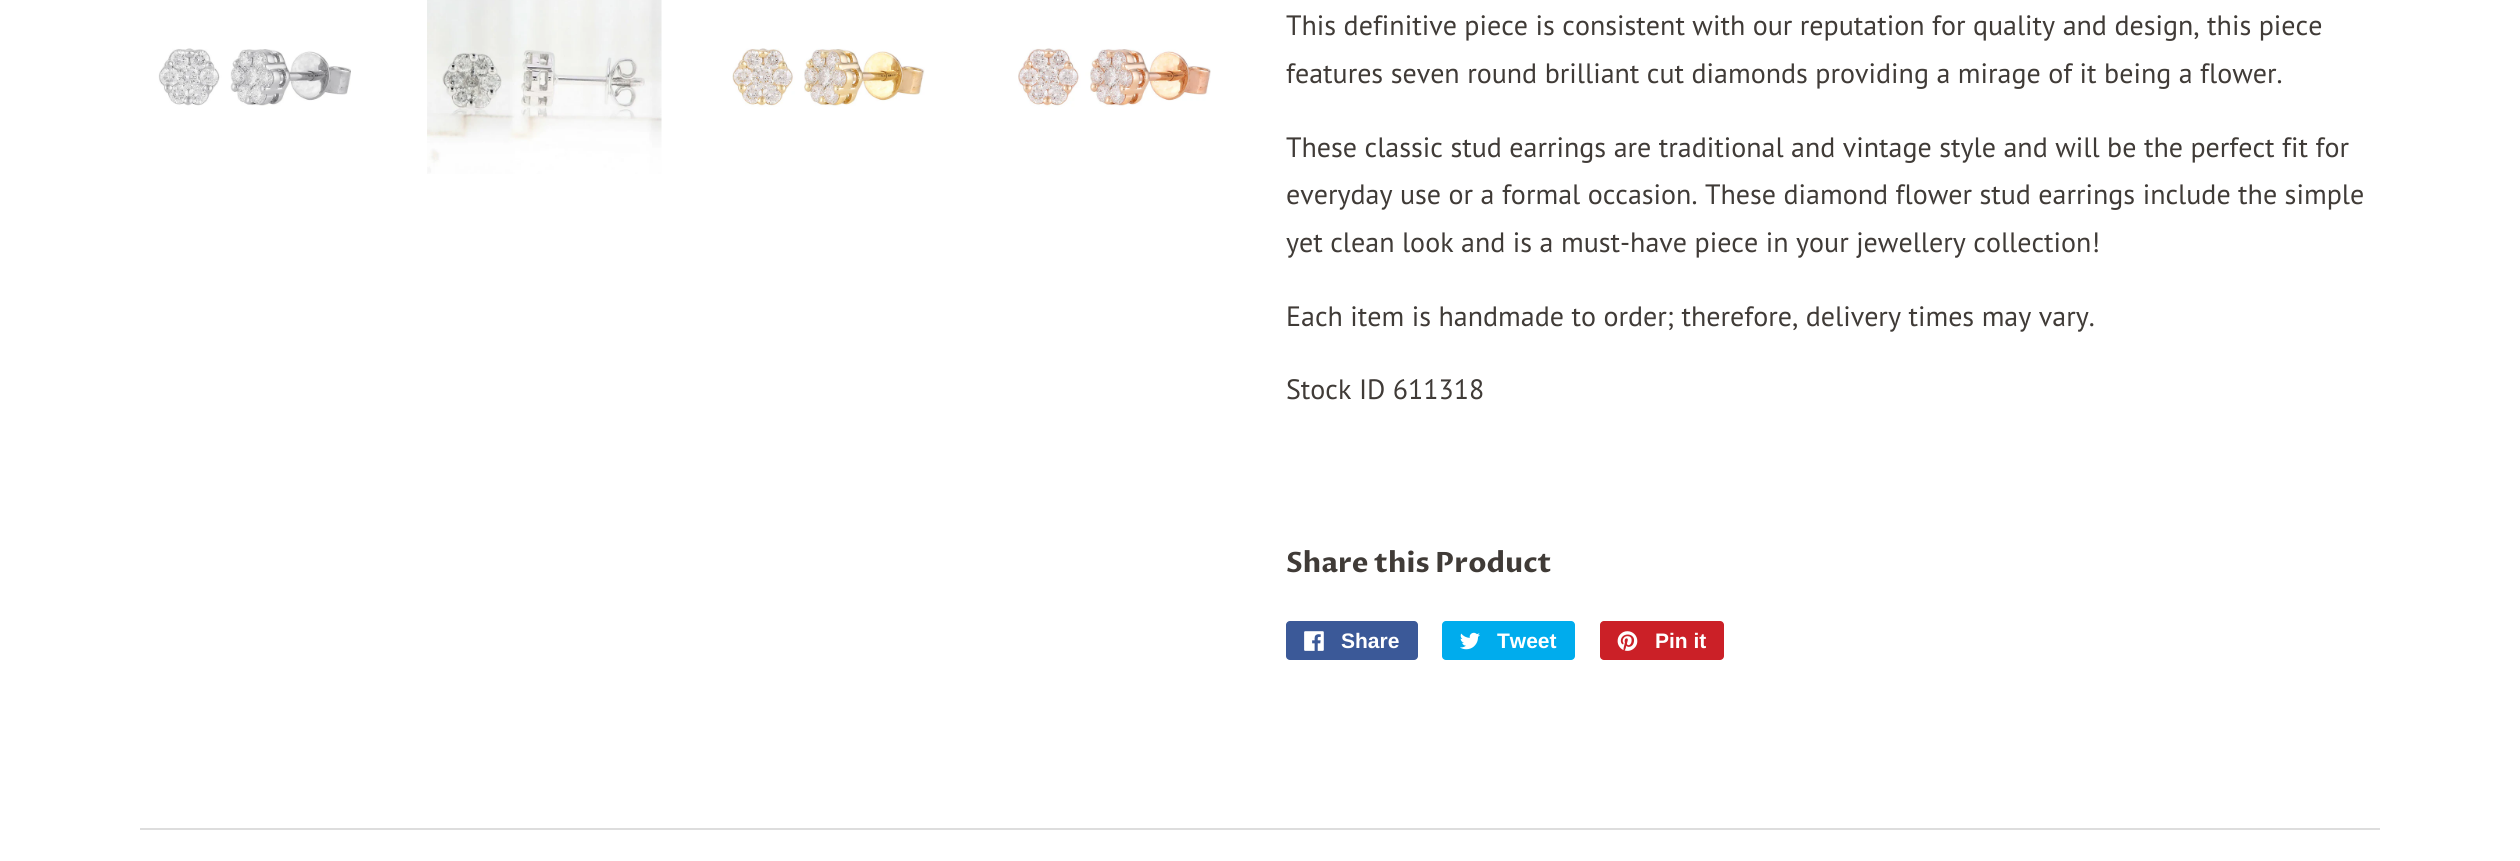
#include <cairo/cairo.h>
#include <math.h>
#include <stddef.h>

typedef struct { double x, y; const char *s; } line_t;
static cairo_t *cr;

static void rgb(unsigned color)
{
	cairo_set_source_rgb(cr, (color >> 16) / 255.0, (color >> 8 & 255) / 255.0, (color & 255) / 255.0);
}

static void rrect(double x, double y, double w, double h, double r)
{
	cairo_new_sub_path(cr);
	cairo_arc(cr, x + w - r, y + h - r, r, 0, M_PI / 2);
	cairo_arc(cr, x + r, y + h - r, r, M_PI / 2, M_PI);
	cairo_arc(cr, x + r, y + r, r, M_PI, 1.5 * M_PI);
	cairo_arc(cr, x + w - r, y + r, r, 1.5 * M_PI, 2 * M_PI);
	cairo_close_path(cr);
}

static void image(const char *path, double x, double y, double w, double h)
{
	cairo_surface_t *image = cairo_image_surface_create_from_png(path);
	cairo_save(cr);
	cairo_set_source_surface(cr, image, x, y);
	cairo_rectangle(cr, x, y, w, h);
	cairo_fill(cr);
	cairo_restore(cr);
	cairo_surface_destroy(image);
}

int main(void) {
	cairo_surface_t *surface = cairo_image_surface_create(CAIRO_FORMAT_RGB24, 2520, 861);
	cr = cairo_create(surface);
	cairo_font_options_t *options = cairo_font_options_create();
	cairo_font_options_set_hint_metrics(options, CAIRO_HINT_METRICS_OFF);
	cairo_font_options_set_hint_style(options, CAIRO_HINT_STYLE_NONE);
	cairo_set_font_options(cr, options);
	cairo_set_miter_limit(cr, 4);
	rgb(0xffffff);
	cairo_paint(cr);
	image("img/1.png", 158, 48, 193, 58);
	image("img/2.png", 427, 0, 235, 174);
	image("img/3.png", 732, 48, 193, 59);
	image("img/4.png", 1018, 48, 193, 59);
	rgb(0x3b5998);
	rrect(1286, 621, 132, 39, 4);
	cairo_fill(cr);
	image("img/5.png", 1304, 631, 20, 20);
	rgb(0x00aced);
	rrect(1442, 621, 133, 39, 4);
	cairo_fill(cr);
	image("img/6.png", 1460, 632, 20, 18);
	rgb(0xcb2027);
	rrect(1600, 621, 124, 39, 4);
	cairo_fill(cr);
	image("img/7.png", 1617, 631, 21, 20);
	rgb(0xdddddd);
	cairo_rectangle(cr, 140, 828, 2240, 2);
	cairo_fill(cr);
	cairo_select_font_face(cr, "PT Sans", CAIRO_FONT_SLANT_NORMAL, CAIRO_FONT_WEIGHT_NORMAL);
	cairo_set_font_size(cr, 28);
	rgb(0x403b37);
	{
		static const line_t items[] = {
			{1286, 35, "This definitive piece is consistent with our reputation for quality and design, this piece"},
			{1286, 83, "features seven round brilliant cut diamonds providing a mirage of it being a flower."},
			{1286, 157, "These classic stud earrings are traditional and vintage style and will be the perfect fit for"},
			{1286, 204, "everyday use or a formal occasion. These diamond flower stud earrings include the simple"},
			{1286, 252, "yet clean look and is a must-have piece in your jewellery collection!"},
			{1286, 326, "Each item is handmade to order; therefore, delivery times may vary."},
			{1286, 399, "Stock ID 611318"},
		};
		for (size_t i = 0; i < sizeof items / sizeof *items; i++) {
			cairo_move_to(cr, items[i].x, items[i].y);
			cairo_show_text(cr, items[i].s);
		}
	}
	cairo_select_font_face(cr, "Proza Libre", CAIRO_FONT_SLANT_NORMAL, CAIRO_FONT_WEIGHT_BOLD);
	cairo_move_to(cr, 1286, 572);
	cairo_show_text(cr, "Share this Product");
	cairo_select_font_face(cr, "Liberation Sans", CAIRO_FONT_SLANT_NORMAL, CAIRO_FONT_WEIGHT_BOLD);
	cairo_set_font_size(cr, 21);
	rgb(0xffffff);
	{
		static const line_t items[] = {
			{1341, 648, "Share"},
			{1497, 648, "Tweet"},
			{1655, 648, "Pin it"},
		};
		for (size_t i = 0; i < sizeof items / sizeof *items; i++) {
			cairo_move_to(cr, items[i].x, items[i].y);
			cairo_show_text(cr, items[i].s);
		}
	}
	cairo_surface_write_to_png(surface, "page.png");
	cairo_font_options_destroy(options);
	cairo_destroy(cr);
	cairo_surface_destroy(surface);
	return 0;
}
